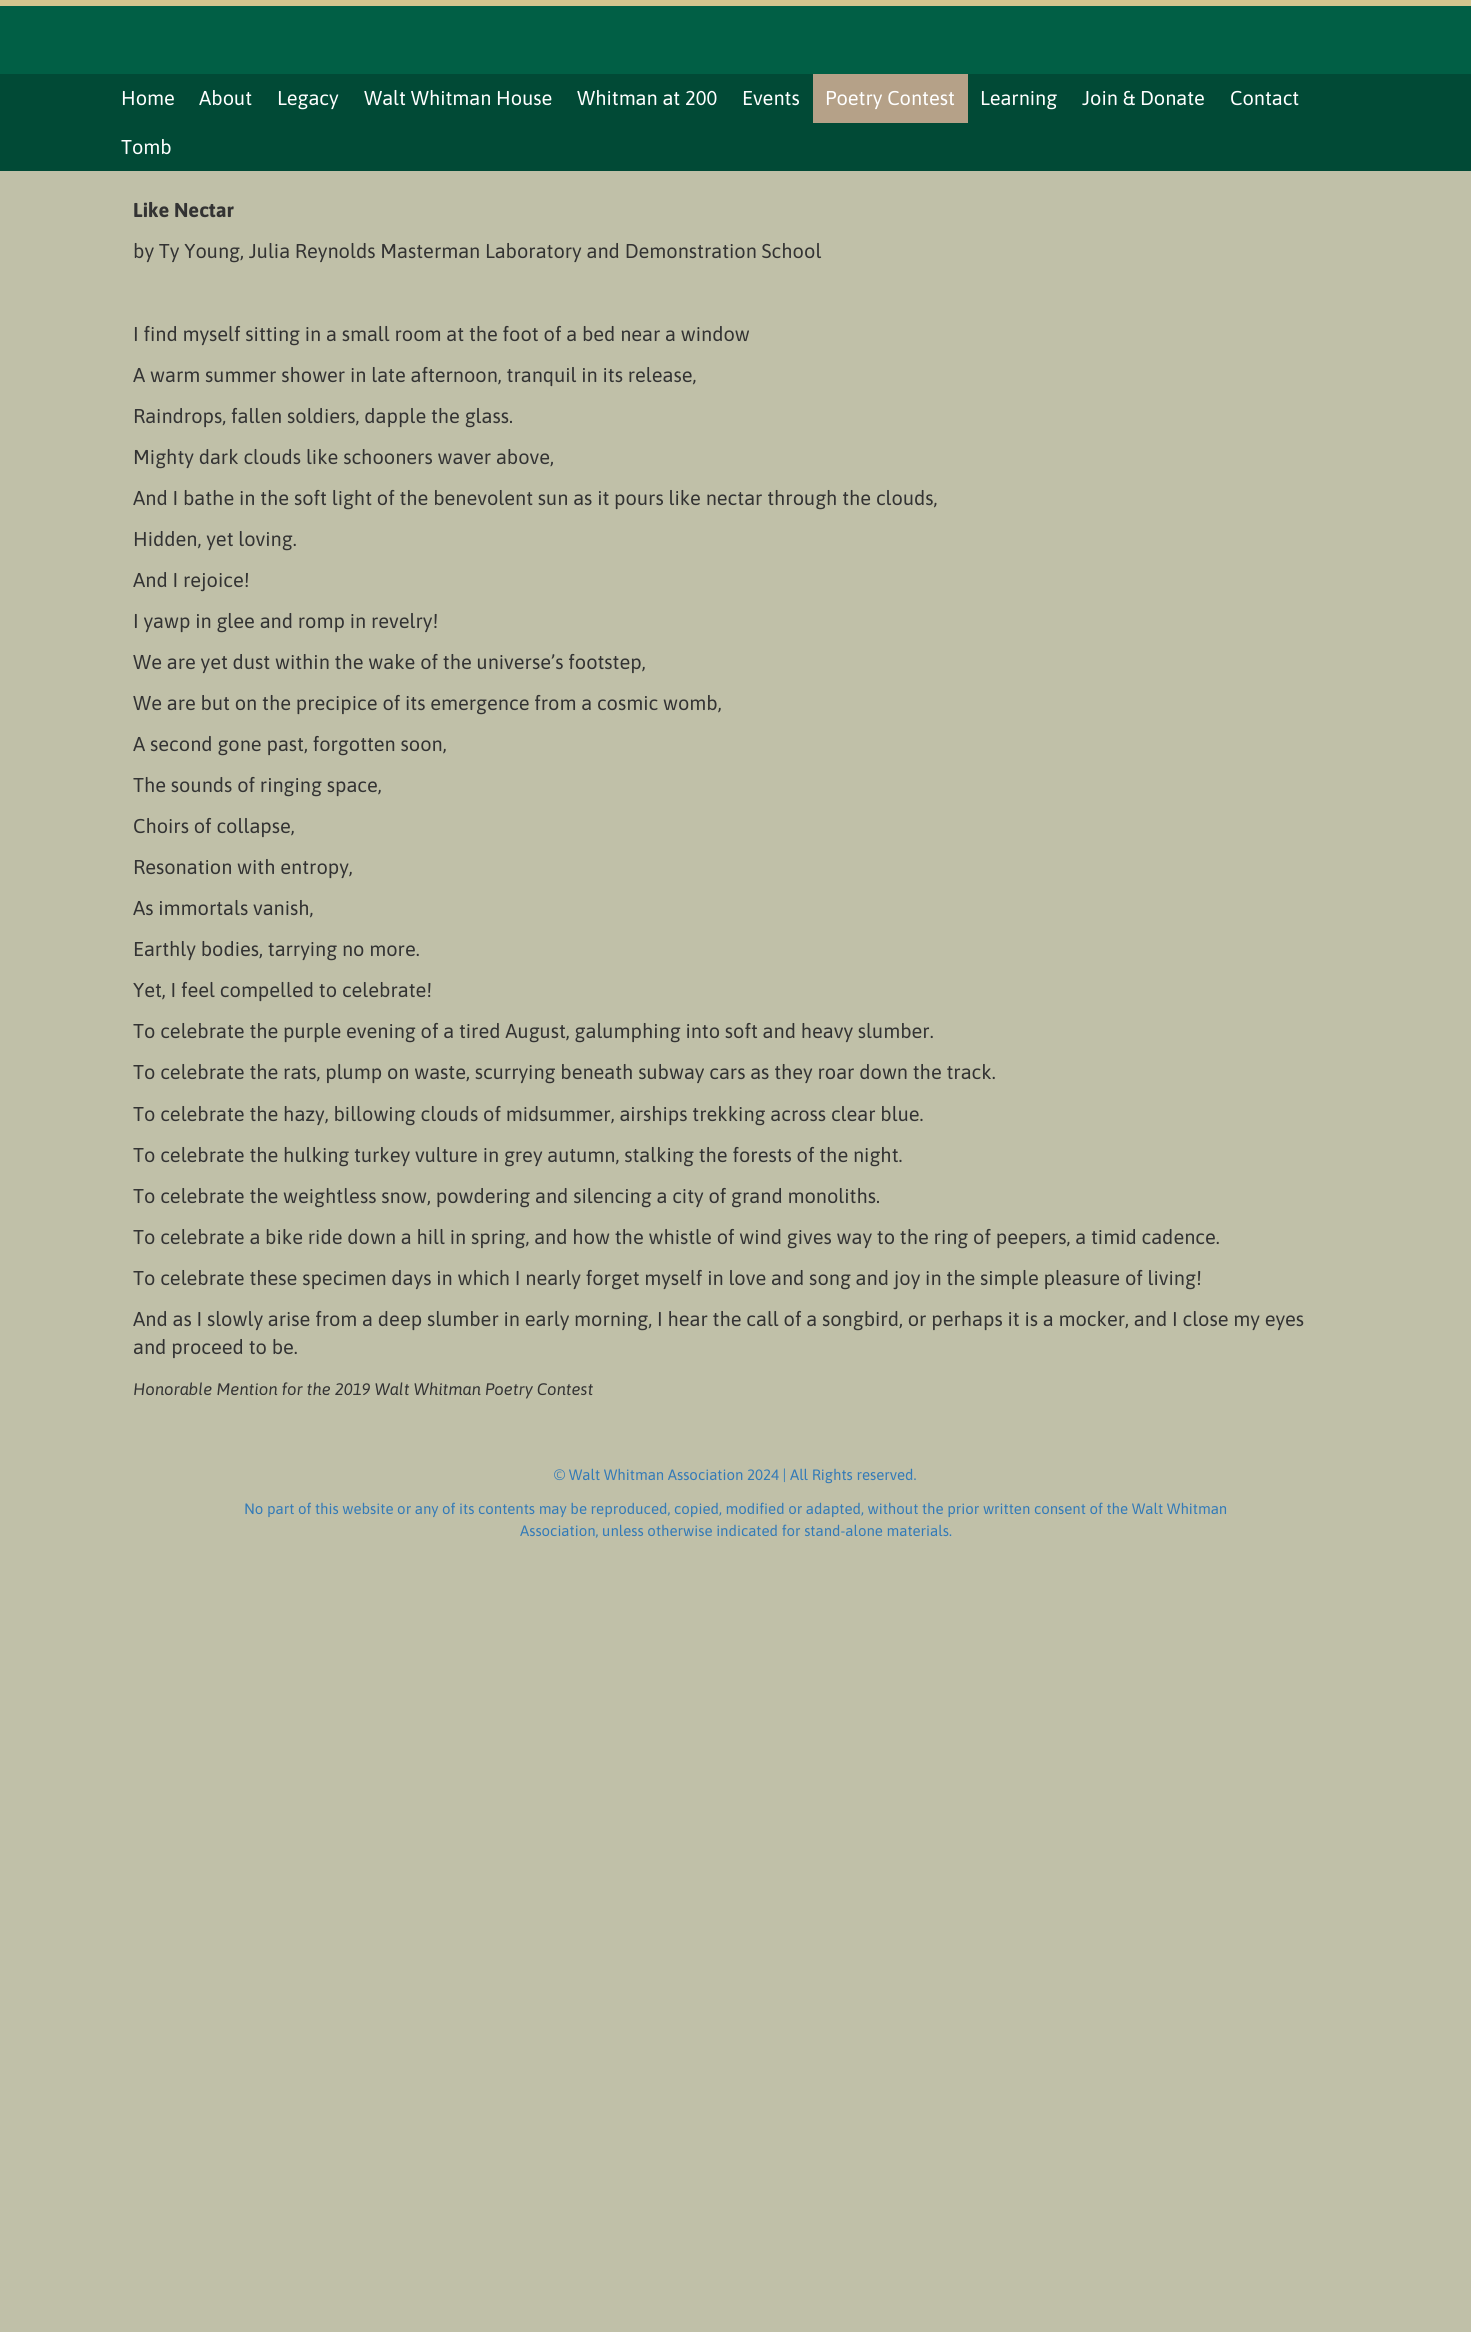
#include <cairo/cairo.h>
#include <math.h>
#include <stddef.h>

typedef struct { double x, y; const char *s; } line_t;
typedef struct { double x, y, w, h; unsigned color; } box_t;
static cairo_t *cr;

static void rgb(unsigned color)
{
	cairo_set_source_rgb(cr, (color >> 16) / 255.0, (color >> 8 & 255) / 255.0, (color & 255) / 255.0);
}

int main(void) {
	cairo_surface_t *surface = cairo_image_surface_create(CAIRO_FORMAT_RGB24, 1471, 2332);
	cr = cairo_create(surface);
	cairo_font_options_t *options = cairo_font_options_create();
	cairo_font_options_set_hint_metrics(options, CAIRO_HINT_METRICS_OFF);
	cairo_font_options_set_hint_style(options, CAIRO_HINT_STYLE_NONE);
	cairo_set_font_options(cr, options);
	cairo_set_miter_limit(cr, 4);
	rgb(0xc0c0a8);
	cairo_paint(cr);
	{
		static const box_t items[] = {
			{0, 6, 1471, 68, 0x015f45},
			{0, 0, 1471, 6, 0xd4c58e},
			{0, 74, 1471, 97, 0x014a36},
			{813, 74, 155, 49, 0xb5a188},
		};
		for (size_t i = 0; i < sizeof items / sizeof *items; i++) {
			rgb(items[i].color);
			cairo_rectangle(cr, items[i].x, items[i].y, items[i].w, items[i].h);
			cairo_fill(cr);
		}
	}
	cairo_select_font_face(cr, "Asap", CAIRO_FONT_SLANT_NORMAL, CAIRO_FONT_WEIGHT_NORMAL);
	cairo_set_font_size(cr, 20);
	rgb(0xffffff);
	{
		static const line_t items[] = {
			{121, 105, "Home"},
			{199, 105, "About"},
			{277, 105, "Legacy"},
			{364, 105, "Walt Whitman House"},
			{577, 105, "Whitman at 200"},
			{742, 105, "Events"},
			{825, 105, "Poetry Contest"},
			{980, 105, "Learning"},
			{1082, 105, "Join & Donate"},
			{1230, 105, "Contact"},
			{121, 154, "Tomb"},
		};
		for (size_t i = 0; i < sizeof items / sizeof *items; i++) {
			cairo_move_to(cr, items[i].x, items[i].y);
			cairo_show_text(cr, items[i].s);
		}
	}
	cairo_select_font_face(cr, "Asap", CAIRO_FONT_SLANT_NORMAL, CAIRO_FONT_WEIGHT_BOLD);
	rgb(0x333333);
	cairo_move_to(cr, 133, 217);
	cairo_show_text(cr, "Like Nectar");
	cairo_select_font_face(cr, "Asap", CAIRO_FONT_SLANT_NORMAL, CAIRO_FONT_WEIGHT_NORMAL);
	{
		static const line_t items[] = {
			{133, 258, "by Ty Young, Julia Reynolds Masterman Laboratory and Demonstration School"},
			{133, 341, "I find myself sitting in a small room at the foot of a bed near a window"},
			{133, 382, "A warm summer shower in late afternoon, tranquil in its release,"},
			{133, 423, "Raindrops, fallen soldiers, dapple the glass."},
			{133, 464, "Mighty dark clouds like schooners waver above,"},
			{133, 505, "And I bathe in the soft light of the benevolent sun as it pours like nectar through the clouds,"},
			{133, 546, "Hidden, yet loving."},
			{133, 587, "And I rejoice!"},
			{133, 628, "I yawp in glee and romp in revelry!"},
			{133, 669, "We are yet dust within the wake of the universe’s footstep,"},
			{133, 710, "We are but on the precipice of its emergence from a cosmic womb,"},
			{133, 751, "A second gone past, forgotten soon,"},
			{133, 792, "The sounds of ringing space,"},
			{133, 833, "Choirs of collapse,"},
			{133, 874, "Resonation with entropy,"},
			{133, 915, "As immortals vanish,"},
			{133, 956, "Earthly bodies, tarrying no more."},
			{133, 997, "Yet, I feel compelled to celebrate!"},
			{133, 1038, "To celebrate the purple evening of a tired August, galumphing into soft and heavy slumber."},
			{133, 1079, "To celebrate the rats, plump on waste, scurrying beneath subway cars as they roar down the track."},
			{133, 1121, "To celebrate the hazy, billowing clouds of midsummer, airships trekking across clear blue."},
			{133, 1162, "To celebrate the hulking turkey vulture in grey autumn, stalking the forests of the night."},
			{133, 1203, "To celebrate the weightless snow, powdering and silencing a city of grand monoliths."},
			{133, 1244, "To celebrate a bike ride down a hill in spring, and how the whistle of wind gives way to the ring of peepers, a timid cadence."},
			{133, 1285, "To celebrate these specimen days in which I nearly forget myself in love and song and joy in the simple pleasure of living!"},
			{133, 1326, "And as I slowly arise from a deep slumber in early morning, I hear the call of a songbird, or perhaps it is a mocker, and I close my eyes"},
			{133, 1354, "and proceed to be."},
		};
		for (size_t i = 0; i < sizeof items / sizeof *items; i++) {
			cairo_move_to(cr, items[i].x, items[i].y);
			cairo_show_text(cr, items[i].s);
		}
	}
	cairo_select_font_face(cr, "Asap", CAIRO_FONT_SLANT_ITALIC, CAIRO_FONT_WEIGHT_NORMAL);
	cairo_set_font_size(cr, 16.7);
	cairo_move_to(cr, 133, 1395);
	cairo_show_text(cr, "Honorable Mention for the 2019 Walt Whitman Poetry Contest");
	cairo_select_font_face(cr, "Asap", CAIRO_FONT_SLANT_NORMAL, CAIRO_FONT_WEIGHT_NORMAL);
	cairo_set_font_size(cr, 15);
	rgb(0x337ab7);
	{
		static const line_t items[] = {
			{554, 1480, "© Walt Whitman Association 2024 | All Rights reserved."},
			{244, 1514, "No part of this website or any of its contents may be reproduced, copied, modified or adapted, without the prior written consent of the Walt Whitman"},
			{520, 1536, "Association, unless otherwise indicated for stand-alone materials."},
		};
		for (size_t i = 0; i < sizeof items / sizeof *items; i++) {
			cairo_move_to(cr, items[i].x, items[i].y);
			cairo_show_text(cr, items[i].s);
		}
	}
	cairo_surface_write_to_png(surface, "page.png");
	cairo_font_options_destroy(options);
	cairo_destroy(cr);
	cairo_surface_destroy(surface);
	return 0;
}
